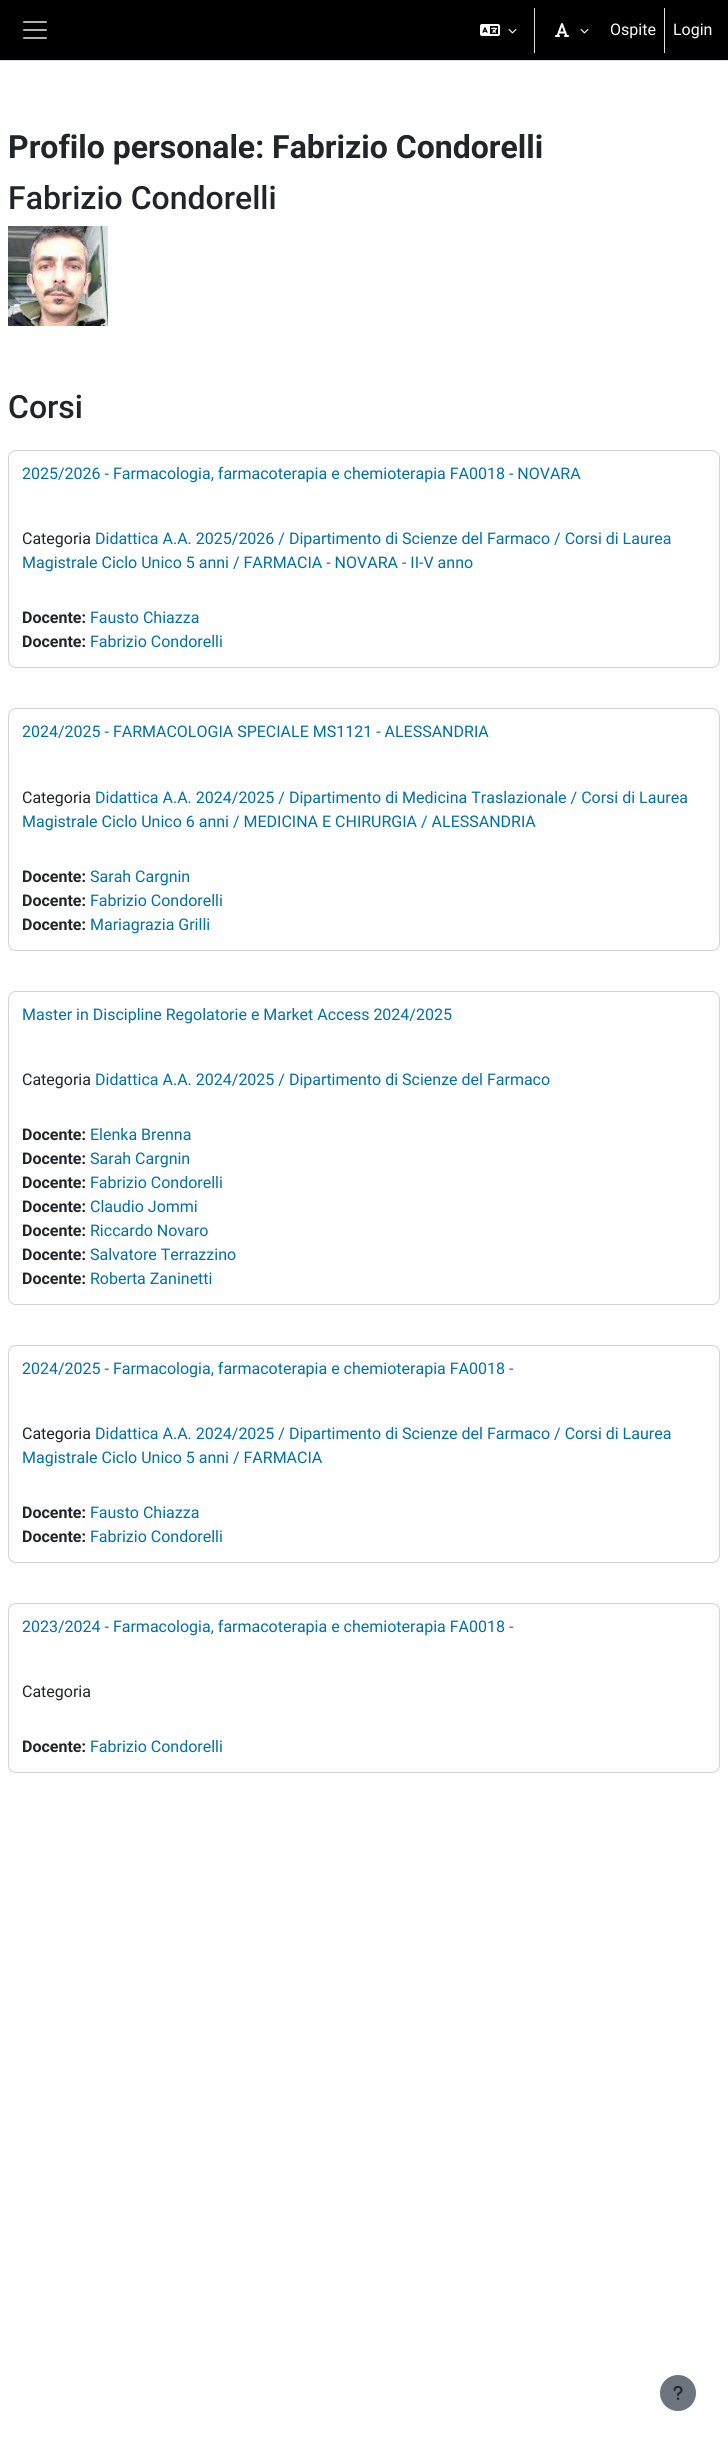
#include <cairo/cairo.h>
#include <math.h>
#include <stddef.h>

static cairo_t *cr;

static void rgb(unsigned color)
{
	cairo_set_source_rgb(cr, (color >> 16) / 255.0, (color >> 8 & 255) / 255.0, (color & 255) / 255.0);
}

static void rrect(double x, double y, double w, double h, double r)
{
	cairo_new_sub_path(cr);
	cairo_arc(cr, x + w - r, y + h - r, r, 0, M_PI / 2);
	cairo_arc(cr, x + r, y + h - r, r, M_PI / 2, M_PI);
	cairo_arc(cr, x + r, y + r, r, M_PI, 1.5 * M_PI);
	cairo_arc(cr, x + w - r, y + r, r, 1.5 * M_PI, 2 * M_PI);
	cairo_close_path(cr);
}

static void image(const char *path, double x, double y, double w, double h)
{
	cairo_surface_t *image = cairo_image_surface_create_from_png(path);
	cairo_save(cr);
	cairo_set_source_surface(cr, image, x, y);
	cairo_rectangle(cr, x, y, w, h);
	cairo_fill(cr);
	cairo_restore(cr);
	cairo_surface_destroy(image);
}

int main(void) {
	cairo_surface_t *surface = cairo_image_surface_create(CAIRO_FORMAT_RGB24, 728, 2443);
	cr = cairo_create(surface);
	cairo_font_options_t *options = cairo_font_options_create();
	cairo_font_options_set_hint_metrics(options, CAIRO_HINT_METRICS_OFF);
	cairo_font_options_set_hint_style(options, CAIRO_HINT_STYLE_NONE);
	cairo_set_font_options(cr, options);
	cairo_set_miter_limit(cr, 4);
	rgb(0xffffff);
	cairo_paint(cr);
	rgb(0x000000);
	cairo_rectangle(cr, 0, 0, 728, 60);
	cairo_fill(cr);
	rgb(0xdee2e6);
	cairo_rectangle(cr, 0, 60, 728, 1);
	cairo_fill(cr);
	image("img/1.png", 23, 21, 24, 18);
	image("img/2.png", 480, 24, 20, 12);
	image("img/3.png", 508, 29, 9, 5);
	cairo_rectangle(cr, 534, 8, 1, 45);
	cairo_fill(cr);
	image("img/4.png", 555, 23, 14, 14);
	image("img/3.png", 580, 29, 9, 5);
	cairo_rectangle(cr, 664, 8, 1, 45);
	cairo_fill(cr);
	image("img/5.png", 8, 226, 100, 100);
	rrect(8.5, 450.5, 711, 217, 7.5);
	rgb(0xd3d3d3);
	cairo_set_line_width(cr, 1);
	cairo_stroke(cr);
	rrect(8.5, 708.5, 711, 242, 7.5);
	cairo_stroke(cr);
	rrect(8.5, 991.5, 711, 313, 7.5);
	cairo_stroke(cr);
	rrect(8.5, 1345.5, 711, 217, 7.5);
	cairo_stroke(cr);
	rrect(8.5, 1603.5, 711, 169, 7.5);
	cairo_stroke(cr);
	rgb(0x6c757d);
	cairo_arc(cr, 678, 2393, 18, 0, 2 * M_PI);
	cairo_fill(cr);
	image("img/6.png", 673, 2386, 10, 14);
	cairo_select_font_face(cr, "Roboto", CAIRO_FONT_SLANT_NORMAL, CAIRO_FONT_WEIGHT_NORMAL);
	cairo_set_font_size(cr, 16);
	rgb(0xffffff);
	cairo_move_to(cr, 610, 35);
	cairo_show_text(cr, "Ospite");
	cairo_move_to(cr, 673, 35);
	cairo_show_text(cr, "Login");
	cairo_select_font_face(cr, "Roboto", CAIRO_FONT_SLANT_NORMAL, CAIRO_FONT_WEIGHT_BOLD);
	cairo_set_font_size(cr, 32);
	rgb(0x212529);
	cairo_move_to(cr, 8, 158);
	cairo_show_text(cr, "Profilo personale: Fabrizio Condorelli");
	cairo_select_font_face(cr, "Roboto Medium", CAIRO_FONT_SLANT_NORMAL, CAIRO_FONT_WEIGHT_NORMAL);
	cairo_move_to(cr, 8, 209);
	cairo_show_text(cr, "Fabrizio Condorelli");
	cairo_move_to(cr, 8, 418);
	cairo_show_text(cr, "Corsi");
	cairo_select_font_face(cr, "Roboto", CAIRO_FONT_SLANT_NORMAL, CAIRO_FONT_WEIGHT_NORMAL);
	cairo_set_font_size(cr, 16);
	rgb(0x0070a8);
	cairo_move_to(cr, 22, 479);
	cairo_show_text(cr, "2025/2026 - Farmacologia, farmacoterapia e chemioterapia FA0018 - NOVARA");
	rgb(0x212529);
	cairo_move_to(cr, 22, 544);
	cairo_show_text(cr, "Categoria");
	rgb(0x0070a8);
	cairo_move_to(cr, 95, 544);
	cairo_show_text(cr, "Didattica A.A. 2025/2026 / Dipartimento di Scienze del Farmaco / Corsi di Laurea");
	cairo_move_to(cr, 22, 568);
	cairo_show_text(cr, "Magistrale Ciclo Unico 5 anni / FARMACIA - NOVARA - II-V anno");
	cairo_select_font_face(cr, "Roboto", CAIRO_FONT_SLANT_NORMAL, CAIRO_FONT_WEIGHT_BOLD);
	rgb(0x212529);
	cairo_move_to(cr, 22, 623);
	cairo_show_text(cr, "Docente:");
	cairo_select_font_face(cr, "Roboto", CAIRO_FONT_SLANT_NORMAL, CAIRO_FONT_WEIGHT_NORMAL);
	rgb(0x0070a8);
	cairo_move_to(cr, 90, 623);
	cairo_show_text(cr, "Fausto Chiazza");
	cairo_select_font_face(cr, "Roboto", CAIRO_FONT_SLANT_NORMAL, CAIRO_FONT_WEIGHT_BOLD);
	rgb(0x212529);
	cairo_move_to(cr, 22, 647);
	cairo_show_text(cr, "Docente:");
	cairo_select_font_face(cr, "Roboto", CAIRO_FONT_SLANT_NORMAL, CAIRO_FONT_WEIGHT_NORMAL);
	rgb(0x0070a8);
	cairo_move_to(cr, 90, 647);
	cairo_show_text(cr, "Fabrizio Condorelli");
	cairo_move_to(cr, 22, 737);
	cairo_show_text(cr, "2024/2025 - FARMACOLOGIA SPECIALE MS1121 - ALESSANDRIA");
	rgb(0x212529);
	cairo_move_to(cr, 22, 803);
	cairo_show_text(cr, "Categoria");
	rgb(0x0070a8);
	cairo_move_to(cr, 95, 803);
	cairo_show_text(cr, "Didattica A.A. 2024/2025 / Dipartimento di Medicina Traslazionale / Corsi di Laurea");
	cairo_move_to(cr, 22, 827);
	cairo_show_text(cr, "Magistrale Ciclo Unico 6 anni / MEDICINA E CHIRURGIA / ALESSANDRIA");
	cairo_select_font_face(cr, "Roboto", CAIRO_FONT_SLANT_NORMAL, CAIRO_FONT_WEIGHT_BOLD);
	rgb(0x212529);
	cairo_move_to(cr, 22, 882);
	cairo_show_text(cr, "Docente:");
	cairo_select_font_face(cr, "Roboto", CAIRO_FONT_SLANT_NORMAL, CAIRO_FONT_WEIGHT_NORMAL);
	rgb(0x0070a8);
	cairo_move_to(cr, 90, 882);
	cairo_show_text(cr, "Sarah Cargnin");
	cairo_select_font_face(cr, "Roboto", CAIRO_FONT_SLANT_NORMAL, CAIRO_FONT_WEIGHT_BOLD);
	rgb(0x212529);
	cairo_move_to(cr, 22, 906);
	cairo_show_text(cr, "Docente:");
	cairo_select_font_face(cr, "Roboto", CAIRO_FONT_SLANT_NORMAL, CAIRO_FONT_WEIGHT_NORMAL);
	rgb(0x0070a8);
	cairo_move_to(cr, 90, 906);
	cairo_show_text(cr, "Fabrizio Condorelli");
	cairo_select_font_face(cr, "Roboto", CAIRO_FONT_SLANT_NORMAL, CAIRO_FONT_WEIGHT_BOLD);
	rgb(0x212529);
	cairo_move_to(cr, 22, 930);
	cairo_show_text(cr, "Docente:");
	cairo_select_font_face(cr, "Roboto", CAIRO_FONT_SLANT_NORMAL, CAIRO_FONT_WEIGHT_NORMAL);
	rgb(0x0070a8);
	cairo_move_to(cr, 90, 930);
	cairo_show_text(cr, "Mariagrazia Grilli");
	cairo_move_to(cr, 22, 1020);
	cairo_show_text(cr, "Master in Discipline Regolatorie e Market Access 2024/2025");
	rgb(0x212529);
	cairo_move_to(cr, 22, 1085);
	cairo_show_text(cr, "Categoria");
	rgb(0x0070a8);
	cairo_move_to(cr, 95, 1085);
	cairo_show_text(cr, "Didattica A.A. 2024/2025 / Dipartimento di Scienze del Farmaco");
	cairo_select_font_face(cr, "Roboto", CAIRO_FONT_SLANT_NORMAL, CAIRO_FONT_WEIGHT_BOLD);
	rgb(0x212529);
	cairo_move_to(cr, 22, 1140);
	cairo_show_text(cr, "Docente:");
	cairo_select_font_face(cr, "Roboto", CAIRO_FONT_SLANT_NORMAL, CAIRO_FONT_WEIGHT_NORMAL);
	rgb(0x0070a8);
	cairo_move_to(cr, 90, 1140);
	cairo_show_text(cr, "Elenka Brenna");
	cairo_select_font_face(cr, "Roboto", CAIRO_FONT_SLANT_NORMAL, CAIRO_FONT_WEIGHT_BOLD);
	rgb(0x212529);
	cairo_move_to(cr, 22, 1164);
	cairo_show_text(cr, "Docente:");
	cairo_select_font_face(cr, "Roboto", CAIRO_FONT_SLANT_NORMAL, CAIRO_FONT_WEIGHT_NORMAL);
	rgb(0x0070a8);
	cairo_move_to(cr, 90, 1164);
	cairo_show_text(cr, "Sarah Cargnin");
	cairo_select_font_face(cr, "Roboto", CAIRO_FONT_SLANT_NORMAL, CAIRO_FONT_WEIGHT_BOLD);
	rgb(0x212529);
	cairo_move_to(cr, 22, 1188);
	cairo_show_text(cr, "Docente:");
	cairo_select_font_face(cr, "Roboto", CAIRO_FONT_SLANT_NORMAL, CAIRO_FONT_WEIGHT_NORMAL);
	rgb(0x0070a8);
	cairo_move_to(cr, 90, 1188);
	cairo_show_text(cr, "Fabrizio Condorelli");
	cairo_select_font_face(cr, "Roboto", CAIRO_FONT_SLANT_NORMAL, CAIRO_FONT_WEIGHT_BOLD);
	rgb(0x212529);
	cairo_move_to(cr, 22, 1212);
	cairo_show_text(cr, "Docente:");
	cairo_select_font_face(cr, "Roboto", CAIRO_FONT_SLANT_NORMAL, CAIRO_FONT_WEIGHT_NORMAL);
	rgb(0x0070a8);
	cairo_move_to(cr, 90, 1212);
	cairo_show_text(cr, "Claudio Jommi");
	cairo_select_font_face(cr, "Roboto", CAIRO_FONT_SLANT_NORMAL, CAIRO_FONT_WEIGHT_BOLD);
	rgb(0x212529);
	cairo_move_to(cr, 22, 1236);
	cairo_show_text(cr, "Docente:");
	cairo_select_font_face(cr, "Roboto", CAIRO_FONT_SLANT_NORMAL, CAIRO_FONT_WEIGHT_NORMAL);
	rgb(0x0070a8);
	cairo_move_to(cr, 90, 1236);
	cairo_show_text(cr, "Riccardo Novaro");
	cairo_select_font_face(cr, "Roboto", CAIRO_FONT_SLANT_NORMAL, CAIRO_FONT_WEIGHT_BOLD);
	rgb(0x212529);
	cairo_move_to(cr, 22, 1260);
	cairo_show_text(cr, "Docente:");
	cairo_select_font_face(cr, "Roboto", CAIRO_FONT_SLANT_NORMAL, CAIRO_FONT_WEIGHT_NORMAL);
	rgb(0x0070a8);
	cairo_move_to(cr, 90, 1260);
	cairo_show_text(cr, "Salvatore Terrazzino");
	cairo_select_font_face(cr, "Roboto", CAIRO_FONT_SLANT_NORMAL, CAIRO_FONT_WEIGHT_BOLD);
	rgb(0x212529);
	cairo_move_to(cr, 22, 1284);
	cairo_show_text(cr, "Docente:");
	cairo_select_font_face(cr, "Roboto", CAIRO_FONT_SLANT_NORMAL, CAIRO_FONT_WEIGHT_NORMAL);
	rgb(0x0070a8);
	cairo_move_to(cr, 90, 1284);
	cairo_show_text(cr, "Roberta Zaninetti");
	cairo_move_to(cr, 22, 1374);
	cairo_show_text(cr, "2024/2025 - Farmacologia, farmacoterapia e chemioterapia FA0018 -");
	rgb(0x212529);
	cairo_move_to(cr, 22, 1439);
	cairo_show_text(cr, "Categoria");
	rgb(0x0070a8);
	cairo_move_to(cr, 95, 1439);
	cairo_show_text(cr, "Didattica A.A. 2024/2025 / Dipartimento di Scienze del Farmaco / Corsi di Laurea");
	cairo_move_to(cr, 22, 1463);
	cairo_show_text(cr, "Magistrale Ciclo Unico 5 anni / FARMACIA");
	cairo_select_font_face(cr, "Roboto", CAIRO_FONT_SLANT_NORMAL, CAIRO_FONT_WEIGHT_BOLD);
	rgb(0x212529);
	cairo_move_to(cr, 22, 1518);
	cairo_show_text(cr, "Docente:");
	cairo_select_font_face(cr, "Roboto", CAIRO_FONT_SLANT_NORMAL, CAIRO_FONT_WEIGHT_NORMAL);
	rgb(0x0070a8);
	cairo_move_to(cr, 90, 1518);
	cairo_show_text(cr, "Fausto Chiazza");
	cairo_select_font_face(cr, "Roboto", CAIRO_FONT_SLANT_NORMAL, CAIRO_FONT_WEIGHT_BOLD);
	rgb(0x212529);
	cairo_move_to(cr, 22, 1542);
	cairo_show_text(cr, "Docente:");
	cairo_select_font_face(cr, "Roboto", CAIRO_FONT_SLANT_NORMAL, CAIRO_FONT_WEIGHT_NORMAL);
	rgb(0x0070a8);
	cairo_move_to(cr, 90, 1542);
	cairo_show_text(cr, "Fabrizio Condorelli");
	cairo_move_to(cr, 22, 1632);
	cairo_show_text(cr, "2023/2024 - Farmacologia, farmacoterapia e chemioterapia FA0018 -");
	rgb(0x212529);
	cairo_move_to(cr, 22, 1697);
	cairo_show_text(cr, "Categoria");
	cairo_select_font_face(cr, "Roboto", CAIRO_FONT_SLANT_NORMAL, CAIRO_FONT_WEIGHT_BOLD);
	cairo_move_to(cr, 22, 1752);
	cairo_show_text(cr, "Docente:");
	cairo_select_font_face(cr, "Roboto", CAIRO_FONT_SLANT_NORMAL, CAIRO_FONT_WEIGHT_NORMAL);
	rgb(0x0070a8);
	cairo_move_to(cr, 90, 1752);
	cairo_show_text(cr, "Fabrizio Condorelli");
	cairo_surface_write_to_png(surface, "page.png");
	cairo_font_options_destroy(options);
	cairo_destroy(cr);
	cairo_surface_destroy(surface);
	return 0;
}
